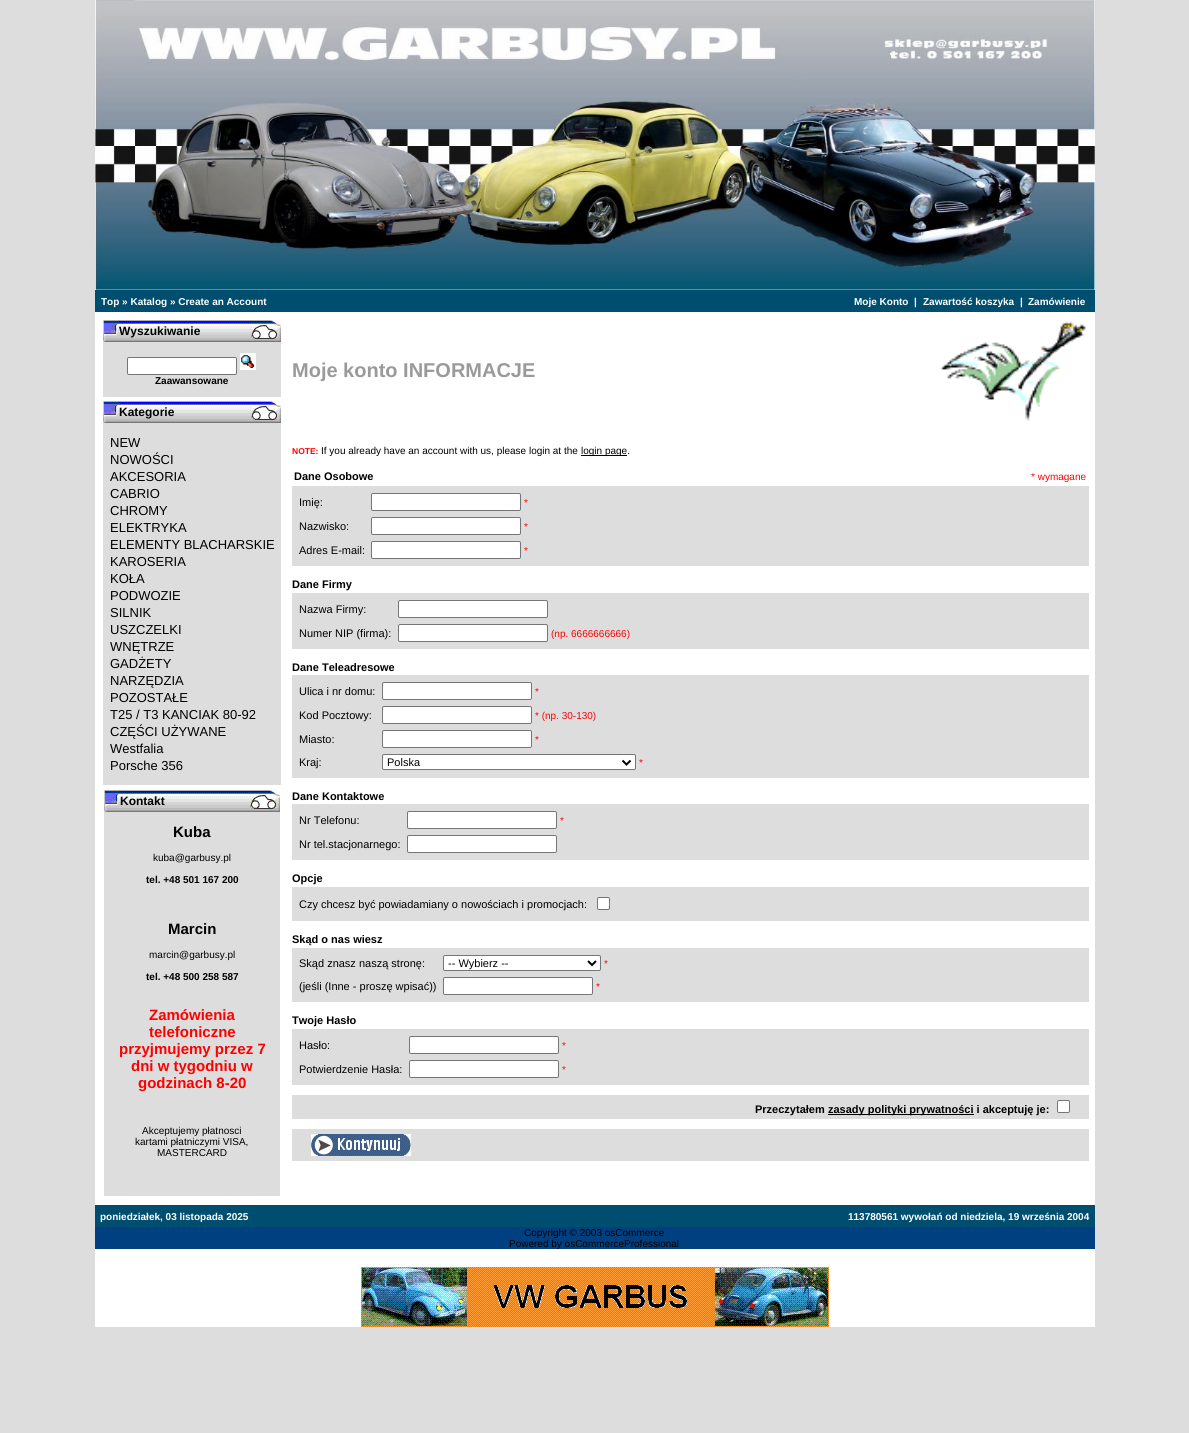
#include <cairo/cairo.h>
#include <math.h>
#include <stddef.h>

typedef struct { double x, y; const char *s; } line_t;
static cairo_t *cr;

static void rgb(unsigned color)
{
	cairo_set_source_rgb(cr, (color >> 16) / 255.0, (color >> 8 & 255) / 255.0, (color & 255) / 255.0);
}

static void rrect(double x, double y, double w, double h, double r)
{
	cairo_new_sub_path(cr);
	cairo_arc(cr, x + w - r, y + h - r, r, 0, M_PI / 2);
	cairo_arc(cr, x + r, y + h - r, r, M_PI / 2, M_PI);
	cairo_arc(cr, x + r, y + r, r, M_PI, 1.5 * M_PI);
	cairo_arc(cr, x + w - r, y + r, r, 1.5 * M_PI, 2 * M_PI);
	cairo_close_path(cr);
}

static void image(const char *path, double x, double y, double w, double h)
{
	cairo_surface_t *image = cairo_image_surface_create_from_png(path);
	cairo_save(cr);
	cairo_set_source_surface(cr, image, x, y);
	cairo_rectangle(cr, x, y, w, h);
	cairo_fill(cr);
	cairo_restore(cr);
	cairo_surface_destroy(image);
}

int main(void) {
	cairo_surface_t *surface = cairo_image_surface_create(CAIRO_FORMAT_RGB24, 1189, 1433);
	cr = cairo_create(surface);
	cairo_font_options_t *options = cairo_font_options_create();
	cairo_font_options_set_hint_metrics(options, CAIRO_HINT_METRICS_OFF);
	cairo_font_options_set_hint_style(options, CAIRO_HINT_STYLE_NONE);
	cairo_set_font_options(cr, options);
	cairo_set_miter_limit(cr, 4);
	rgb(0xdddddd);
	cairo_paint(cr);
	rgb(0xffffff);
	cairo_rectangle(cr, 95, 312, 1000, 1015);
	cairo_fill(cr);
	image("img/1.png", 95, 0, 1000, 290);
	rgb(0x004e6f);
	cairo_rectangle(cr, 95, 290, 1000, 22);
	cairo_fill(cr);
	image("img/2.png", 103, 320, 16, 22);
	image("img/3.png", 119, 320, 131, 22);
	image("img/4.png", 250, 320, 31, 22);
	image("img/5.png", 251, 320, 30, 21);
	rgb(0xdddddd);
	cairo_rectangle(cr, 103, 342, 178, 55);
	cairo_fill(cr);
	rgb(0xffffff);
	rrect(127.5, 357.5, 109, 17, 1.5);
	cairo_fill_preserve(cr);
	rgb(0x767676);
	cairo_set_line_width(cr, 1);
	cairo_stroke(cr);
	image("img/6.png", 240, 353, 16, 17);
	image("img/2.png", 103, 401, 16, 22);
	image("img/3.png", 119, 401, 131, 22);
	image("img/4.png", 250, 401, 31, 22);
	image("img/5.png", 251, 401, 30, 21);
	rgb(0xdddddd);
	cairo_rectangle(cr, 103, 423, 178, 362);
	cairo_fill(cr);
	cairo_rectangle(cr, 104, 812, 176, 384);
	cairo_fill(cr);
	image("img/2.png", 104, 790, 16, 22);
	image("img/7.png", 120, 790, 129, 22);
	image("img/4.png", 249, 790, 31, 22);
	image("img/5.png", 250, 790, 30, 21);
	image("img/8.png", 940, 321, 146, 100);
	rgb(0x000000);
	cairo_rectangle(cr, 581, 455, 46, 1);
	cairo_fill(cr);
	rgb(0xdddddd);
	cairo_rectangle(cr, 292, 486, 797, 80);
	cairo_fill(cr);
	rgb(0xffffff);
	rrect(371.5, 493.5, 149, 17, 1.5);
	cairo_fill_preserve(cr);
	rgb(0x767676);
	cairo_stroke(cr);
	rgb(0xffffff);
	rrect(371.5, 517.5, 149, 17, 1.5);
	cairo_fill_preserve(cr);
	rgb(0x767676);
	cairo_stroke(cr);
	rgb(0xffffff);
	rrect(371.5, 541.5, 149, 17, 1.5);
	cairo_fill_preserve(cr);
	rgb(0x767676);
	cairo_stroke(cr);
	rgb(0xdddddd);
	cairo_rectangle(cr, 292, 593, 797, 56);
	cairo_fill(cr);
	rgb(0xffffff);
	rrect(398.5, 600.5, 149, 17, 1.5);
	cairo_fill_preserve(cr);
	rgb(0x767676);
	cairo_stroke(cr);
	rgb(0xffffff);
	rrect(398.5, 624.5, 149, 17, 1.5);
	cairo_fill_preserve(cr);
	rgb(0x767676);
	cairo_stroke(cr);
	rgb(0xdddddd);
	cairo_rectangle(cr, 292, 675, 797, 103);
	cairo_fill(cr);
	rgb(0xffffff);
	rrect(382.5, 682.5, 149, 17, 1.5);
	cairo_fill_preserve(cr);
	rgb(0x767676);
	cairo_stroke(cr);
	rgb(0xffffff);
	rrect(382.5, 706.5, 149, 17, 1.5);
	cairo_fill_preserve(cr);
	rgb(0x767676);
	cairo_stroke(cr);
	rgb(0xffffff);
	rrect(382.5, 730.5, 149, 17, 1.5);
	cairo_fill_preserve(cr);
	rgb(0x767676);
	cairo_stroke(cr);
	rgb(0xffffff);
	rrect(382.5, 754.5, 253, 15, 1.5);
	cairo_fill_preserve(cr);
	rgb(0x767676);
	cairo_stroke(cr);
	cairo_new_path(cr);
	cairo_move_to(cr, 622.5, 760.5);
	cairo_line_to(cr, 626.5, 764.5);
	cairo_line_to(cr, 630.5, 760.5);
	rgb(0x000000);
	cairo_set_line_width(cr, 2);
	cairo_stroke(cr);
	rgb(0xdddddd);
	cairo_rectangle(cr, 292, 804, 797, 56);
	cairo_fill(cr);
	rgb(0xffffff);
	rrect(407.5, 811.5, 149, 17, 1.5);
	cairo_fill_preserve(cr);
	rgb(0x767676);
	cairo_set_line_width(cr, 1);
	cairo_stroke(cr);
	rgb(0xffffff);
	rrect(407.5, 835.5, 149, 17, 1.5);
	cairo_fill_preserve(cr);
	rgb(0x767676);
	cairo_stroke(cr);
	rgb(0xdddddd);
	cairo_rectangle(cr, 292, 887, 797, 34);
	cairo_fill(cr);
	rgb(0xffffff);
	rrect(597.5, 897.5, 12, 12, 1.5);
	cairo_fill_preserve(cr);
	rgb(0x767676);
	cairo_stroke(cr);
	rgb(0xdddddd);
	cairo_rectangle(cr, 292, 948, 797, 54);
	cairo_fill(cr);
	rgb(0xffffff);
	rrect(443.5, 955.5, 157, 15, 1.5);
	cairo_fill_preserve(cr);
	rgb(0x767676);
	cairo_stroke(cr);
	cairo_new_path(cr);
	cairo_move_to(cr, 588, 961);
	cairo_line_to(cr, 592, 965);
	cairo_line_to(cr, 596, 961);
	rgb(0x000000);
	cairo_set_line_width(cr, 2);
	cairo_stroke(cr);
	rgb(0xffffff);
	rrect(443.5, 977.5, 149, 17, 1.5);
	cairo_fill_preserve(cr);
	rgb(0x767676);
	cairo_set_line_width(cr, 1);
	cairo_stroke(cr);
	rgb(0xdddddd);
	cairo_rectangle(cr, 292, 1029, 797, 56);
	cairo_fill(cr);
	rgb(0xffffff);
	rrect(409.5, 1036.5, 149, 17, 1.5);
	cairo_fill_preserve(cr);
	rgb(0x767676);
	cairo_stroke(cr);
	rgb(0xffffff);
	rrect(409.5, 1060.5, 149, 17, 1.5);
	cairo_fill_preserve(cr);
	rgb(0x767676);
	cairo_stroke(cr);
	rgb(0xdddddd);
	cairo_rectangle(cr, 292, 1095, 797, 24);
	cairo_fill(cr);
	rgb(0x000000);
	cairo_rectangle(cr, 828, 1114, 146, 1);
	cairo_fill(cr);
	rgb(0xffffff);
	rrect(1057.5, 1100.5, 12, 12, 1.5);
	cairo_fill_preserve(cr);
	rgb(0x767676);
	cairo_stroke(cr);
	rgb(0xdddddd);
	cairo_rectangle(cr, 292, 1129, 797, 32);
	cairo_fill(cr);
	image("img/9.png", 311, 1134, 100, 22);
	rgb(0x004e6f);
	cairo_rectangle(cr, 95, 1205, 1000, 22);
	cairo_fill(cr);
	rgb(0x004080);
	cairo_rectangle(cr, 95, 1227, 1000, 22);
	cairo_fill(cr);
	image("img/10.png", 361, 1267, 468, 60);
	cairo_select_font_face(cr, "Liberation Sans", CAIRO_FONT_SLANT_NORMAL, CAIRO_FONT_WEIGHT_BOLD);
	cairo_set_font_size(cr, 10);
	rgb(0xffffff);
	{
		static const line_t items[] = {
			{101, 305, "Top » Katalog » Create an Account"},
			{854, 305, "Moje Konto"},
			{914, 305, "|"},
			{923, 305, "Zawartość koszyka"},
			{1020, 305, "|"},
			{1028, 305, "Zamówienie"},
		};
		for (size_t i = 0; i < sizeof items / sizeof *items; i++) {
			cairo_move_to(cr, items[i].x, items[i].y);
			cairo_show_text(cr, items[i].s);
		}
	}
	cairo_set_font_size(cr, 12);
	rgb(0x000000);
	cairo_move_to(cr, 119, 335);
	cairo_show_text(cr, "Wyszukiwanie");
	cairo_set_font_size(cr, 10);
	cairo_move_to(cr, 155, 384);
	cairo_show_text(cr, "Zaawansowane");
	cairo_set_font_size(cr, 12);
	cairo_move_to(cr, 119, 416);
	cairo_show_text(cr, "Kategorie");
	cairo_select_font_face(cr, "Liberation Sans", CAIRO_FONT_SLANT_NORMAL, CAIRO_FONT_WEIGHT_NORMAL);
	cairo_set_font_size(cr, 13);
	{
		static const line_t items[] = {
			{110, 447, "NEW"},
			{110, 464, "NOWOŚCI"},
			{110, 481, "AKCESORIA"},
			{110, 498, "CABRIO"},
			{110, 515, "CHROMY"},
			{110, 532, "ELEKTRYKA"},
			{110, 549, "ELEMENTY BLACHARSKIE"},
			{110, 566, "KAROSERIA"},
			{110, 583, "KOŁA"},
			{110, 600, "PODWOZIE"},
			{110, 617, "SILNIK"},
			{110, 634, "USZCZELKI"},
			{110, 651, "WNĘTRZE"},
			{110, 668, "GADŻETY"},
			{110, 685, "NARZĘDZIA"},
			{110, 702, "POZOSTAŁE"},
			{110, 719, "T25 / T3 KANCIAK 80-92"},
			{110, 736, "CZĘŚCI UŻYWANE"},
			{110, 753, "Westfalia"},
			{110, 770, "Porsche 356"},
		};
		for (size_t i = 0; i < sizeof items / sizeof *items; i++) {
			cairo_move_to(cr, items[i].x, items[i].y);
			cairo_show_text(cr, items[i].s);
		}
	}
	cairo_select_font_face(cr, "Liberation Sans", CAIRO_FONT_SLANT_NORMAL, CAIRO_FONT_WEIGHT_BOLD);
	cairo_set_font_size(cr, 12);
	cairo_move_to(cr, 120, 805);
	cairo_show_text(cr, "Kontakt");
	cairo_set_font_size(cr, 15);
	cairo_move_to(cr, 173, 837);
	cairo_show_text(cr, "Kuba");
	cairo_select_font_face(cr, "Liberation Sans", CAIRO_FONT_SLANT_NORMAL, CAIRO_FONT_WEIGHT_NORMAL);
	cairo_set_font_size(cr, 10);
	cairo_move_to(cr, 153, 861);
	cairo_show_text(cr, "kuba@garbusy.pl");
	cairo_select_font_face(cr, "Liberation Sans", CAIRO_FONT_SLANT_NORMAL, CAIRO_FONT_WEIGHT_BOLD);
	cairo_move_to(cr, 146, 883);
	cairo_show_text(cr, "tel. +48 501 167 200");
	cairo_set_font_size(cr, 15);
	cairo_move_to(cr, 168, 934);
	cairo_show_text(cr, "Marcin");
	cairo_select_font_face(cr, "Liberation Sans", CAIRO_FONT_SLANT_NORMAL, CAIRO_FONT_WEIGHT_NORMAL);
	cairo_set_font_size(cr, 10);
	cairo_move_to(cr, 149, 958);
	cairo_show_text(cr, "marcin@garbusy.pl");
	cairo_select_font_face(cr, "Liberation Sans", CAIRO_FONT_SLANT_NORMAL, CAIRO_FONT_WEIGHT_BOLD);
	cairo_move_to(cr, 146, 980);
	cairo_show_text(cr, "tel. +48 500 258 587");
	cairo_set_font_size(cr, 15);
	rgb(0xff0000);
	{
		static const line_t items[] = {
			{149, 1020, "Zamówienia"},
			{149, 1037, "telefoniczne"},
			{119, 1054, "przyjmujemy przez 7"},
			{131, 1071, "dni w tygodniu w"},
			{138, 1088, "godzinach 8-20"},
		};
		for (size_t i = 0; i < sizeof items / sizeof *items; i++) {
			cairo_move_to(cr, items[i].x, items[i].y);
			cairo_show_text(cr, items[i].s);
		}
	}
	cairo_select_font_face(cr, "Liberation Sans", CAIRO_FONT_SLANT_NORMAL, CAIRO_FONT_WEIGHT_NORMAL);
	cairo_set_font_size(cr, 10);
	rgb(0x000000);
	{
		static const line_t items[] = {
			{142, 1134, "Akceptujemy płatnosci"},
			{135, 1145, "kartami płatniczymi VISA,"},
			{157, 1156, "MASTERCARD"},
		};
		for (size_t i = 0; i < sizeof items / sizeof *items; i++) {
			cairo_move_to(cr, items[i].x, items[i].y);
			cairo_show_text(cr, items[i].s);
		}
	}
	cairo_select_font_face(cr, "Liberation Sans", CAIRO_FONT_SLANT_NORMAL, CAIRO_FONT_WEIGHT_BOLD);
	cairo_set_font_size(cr, 20);
	rgb(0x9a9a9a);
	cairo_move_to(cr, 292, 377);
	cairo_show_text(cr, "Moje konto INFORMACJE");
	cairo_set_font_size(cr, 8.5);
	rgb(0xff0000);
	cairo_move_to(cr, 292, 454);
	cairo_show_text(cr, "NOTE:");
	cairo_select_font_face(cr, "Liberation Sans", CAIRO_FONT_SLANT_NORMAL, CAIRO_FONT_WEIGHT_NORMAL);
	cairo_set_font_size(cr, 10);
	rgb(0x000000);
	cairo_move_to(cr, 321, 454);
	cairo_show_text(cr, "If you already have an account with us, please login at the");
	cairo_move_to(cr, 581, 454);
	cairo_show_text(cr, "login page.");
	cairo_select_font_face(cr, "Liberation Sans", CAIRO_FONT_SLANT_NORMAL, CAIRO_FONT_WEIGHT_BOLD);
	cairo_set_font_size(cr, 11);
	cairo_move_to(cr, 294, 480);
	cairo_show_text(cr, "Dane Osobowe");
	cairo_select_font_face(cr, "Liberation Sans", CAIRO_FONT_SLANT_NORMAL, CAIRO_FONT_WEIGHT_NORMAL);
	cairo_set_font_size(cr, 10);
	rgb(0xff0000);
	cairo_move_to(cr, 1031, 480);
	cairo_show_text(cr, "* wymagane");
	cairo_set_font_size(cr, 11);
	rgb(0x000000);
	cairo_move_to(cr, 299, 506);
	cairo_show_text(cr, "Imię:");
	cairo_set_font_size(cr, 10);
	rgb(0xff0000);
	cairo_move_to(cr, 524, 506);
	cairo_show_text(cr, "*");
	cairo_set_font_size(cr, 11);
	rgb(0x000000);
	cairo_move_to(cr, 299, 530);
	cairo_show_text(cr, "Nazwisko:");
	cairo_set_font_size(cr, 10);
	rgb(0xff0000);
	cairo_move_to(cr, 524, 530);
	cairo_show_text(cr, "*");
	cairo_set_font_size(cr, 11);
	rgb(0x000000);
	cairo_move_to(cr, 299, 554);
	cairo_show_text(cr, "Adres E-mail:");
	cairo_set_font_size(cr, 10);
	rgb(0xff0000);
	cairo_move_to(cr, 524, 554);
	cairo_show_text(cr, "*");
	cairo_select_font_face(cr, "Liberation Sans", CAIRO_FONT_SLANT_NORMAL, CAIRO_FONT_WEIGHT_BOLD);
	cairo_set_font_size(cr, 11);
	rgb(0x000000);
	cairo_move_to(cr, 292, 588);
	cairo_show_text(cr, "Dane Firmy");
	cairo_select_font_face(cr, "Liberation Sans", CAIRO_FONT_SLANT_NORMAL, CAIRO_FONT_WEIGHT_NORMAL);
	cairo_move_to(cr, 299, 613);
	cairo_show_text(cr, "Nazwa Firmy:");
	cairo_move_to(cr, 299, 637);
	cairo_show_text(cr, "Numer NIP (firma):");
	cairo_set_font_size(cr, 10);
	rgb(0xff0000);
	cairo_move_to(cr, 551, 637);
	cairo_show_text(cr, "(np. 6666666666)");
	cairo_select_font_face(cr, "Liberation Sans", CAIRO_FONT_SLANT_NORMAL, CAIRO_FONT_WEIGHT_BOLD);
	cairo_set_font_size(cr, 11);
	rgb(0x000000);
	cairo_move_to(cr, 292, 671);
	cairo_show_text(cr, "Dane Teleadresowe");
	cairo_select_font_face(cr, "Liberation Sans", CAIRO_FONT_SLANT_NORMAL, CAIRO_FONT_WEIGHT_NORMAL);
	cairo_move_to(cr, 299, 695);
	cairo_show_text(cr, "Ulica i nr domu:");
	cairo_set_font_size(cr, 10);
	rgb(0xff0000);
	cairo_move_to(cr, 535, 695);
	cairo_show_text(cr, "*");
	cairo_set_font_size(cr, 11);
	rgb(0x000000);
	cairo_move_to(cr, 299, 719);
	cairo_show_text(cr, "Kod Pocztowy:");
	cairo_set_font_size(cr, 10);
	rgb(0xff0000);
	cairo_move_to(cr, 535, 719);
	cairo_show_text(cr, "* (np. 30-130)");
	cairo_set_font_size(cr, 11);
	rgb(0x000000);
	cairo_move_to(cr, 299, 743);
	cairo_show_text(cr, "Miasto:");
	cairo_set_font_size(cr, 10);
	rgb(0xff0000);
	cairo_move_to(cr, 535, 743);
	cairo_show_text(cr, "*");
	cairo_set_font_size(cr, 11);
	rgb(0x000000);
	cairo_move_to(cr, 299, 766);
	cairo_show_text(cr, "Kraj:");
	cairo_move_to(cr, 387, 766);
	cairo_show_text(cr, "Polska");
	cairo_set_font_size(cr, 10);
	rgb(0xff0000);
	cairo_move_to(cr, 639, 766);
	cairo_show_text(cr, "*");
	cairo_select_font_face(cr, "Liberation Sans", CAIRO_FONT_SLANT_NORMAL, CAIRO_FONT_WEIGHT_BOLD);
	cairo_set_font_size(cr, 11);
	rgb(0x000000);
	cairo_move_to(cr, 292, 800);
	cairo_show_text(cr, "Dane Kontaktowe");
	cairo_select_font_face(cr, "Liberation Sans", CAIRO_FONT_SLANT_NORMAL, CAIRO_FONT_WEIGHT_NORMAL);
	cairo_move_to(cr, 299, 824);
	cairo_show_text(cr, "Nr Telefonu:");
	cairo_set_font_size(cr, 10);
	rgb(0xff0000);
	cairo_move_to(cr, 560, 824);
	cairo_show_text(cr, "*");
	cairo_set_font_size(cr, 11);
	rgb(0x000000);
	cairo_move_to(cr, 299, 848);
	cairo_show_text(cr, "Nr tel.stacjonarnego:");
	cairo_select_font_face(cr, "Liberation Sans", CAIRO_FONT_SLANT_NORMAL, CAIRO_FONT_WEIGHT_BOLD);
	cairo_move_to(cr, 292, 882);
	cairo_show_text(cr, "Opcje");
	cairo_select_font_face(cr, "Liberation Sans", CAIRO_FONT_SLANT_NORMAL, CAIRO_FONT_WEIGHT_NORMAL);
	cairo_move_to(cr, 299, 908);
	cairo_show_text(cr, "Czy chcesz być powiadamiany o nowościach i promocjach:");
	cairo_select_font_face(cr, "Liberation Sans", CAIRO_FONT_SLANT_NORMAL, CAIRO_FONT_WEIGHT_BOLD);
	cairo_move_to(cr, 292, 943);
	cairo_show_text(cr, "Skąd o nas wiesz");
	cairo_select_font_face(cr, "Liberation Sans", CAIRO_FONT_SLANT_NORMAL, CAIRO_FONT_WEIGHT_NORMAL);
	cairo_move_to(cr, 299, 967);
	cairo_show_text(cr, "Skąd znasz naszą stronę:");
	cairo_move_to(cr, 448, 967);
	cairo_show_text(cr, "-- Wybierz --");
	cairo_set_font_size(cr, 10);
	rgb(0xff0000);
	cairo_move_to(cr, 604, 967);
	cairo_show_text(cr, "*");
	cairo_set_font_size(cr, 11);
	rgb(0x000000);
	cairo_move_to(cr, 299, 990);
	cairo_show_text(cr, "(jeśli (Inne - proszę wpisać))");
	cairo_set_font_size(cr, 10);
	rgb(0xff0000);
	cairo_move_to(cr, 596, 990);
	cairo_show_text(cr, "*");
	cairo_select_font_face(cr, "Liberation Sans", CAIRO_FONT_SLANT_NORMAL, CAIRO_FONT_WEIGHT_BOLD);
	cairo_set_font_size(cr, 11);
	rgb(0x000000);
	cairo_move_to(cr, 292, 1024);
	cairo_show_text(cr, "Twoje Hasło");
	cairo_select_font_face(cr, "Liberation Sans", CAIRO_FONT_SLANT_NORMAL, CAIRO_FONT_WEIGHT_NORMAL);
	cairo_move_to(cr, 299, 1049);
	cairo_show_text(cr, "Hasło:");
	cairo_set_font_size(cr, 10);
	rgb(0xff0000);
	cairo_move_to(cr, 562, 1049);
	cairo_show_text(cr, "*");
	cairo_set_font_size(cr, 11);
	rgb(0x000000);
	cairo_move_to(cr, 299, 1073);
	cairo_show_text(cr, "Potwierdzenie Hasła:");
	cairo_set_font_size(cr, 10);
	rgb(0xff0000);
	cairo_move_to(cr, 562, 1073);
	cairo_show_text(cr, "*");
	cairo_select_font_face(cr, "Liberation Sans", CAIRO_FONT_SLANT_NORMAL, CAIRO_FONT_WEIGHT_BOLD);
	cairo_set_font_size(cr, 11);
	rgb(0x000000);
	cairo_move_to(cr, 755, 1113);
	cairo_show_text(cr, "Przeczytałem");
	cairo_move_to(cr, 828, 1113);
	cairo_show_text(cr, "zasady polityki prywatności i akceptuję je:");
	cairo_set_font_size(cr, 10);
	rgb(0xffffff);
	cairo_move_to(cr, 100, 1220);
	cairo_show_text(cr, "poniedziałek, 03 listopada 2025");
	cairo_move_to(cr, 848, 1220);
	cairo_show_text(cr, "113780561 wywołań od niedziela, 19 września 2004");
	cairo_select_font_face(cr, "Liberation Sans", CAIRO_FONT_SLANT_NORMAL, CAIRO_FONT_WEIGHT_NORMAL);
	rgb(0x000000);
	cairo_move_to(cr, 524, 1236);
	cairo_show_text(cr, "Copyright © 2003 osCommerce");
	cairo_move_to(cr, 509, 1247);
	cairo_show_text(cr, "Powered by osCommerceProfessional");
	cairo_surface_write_to_png(surface, "page.png");
	cairo_font_options_destroy(options);
	cairo_destroy(cr);
	cairo_surface_destroy(surface);
	return 0;
}
